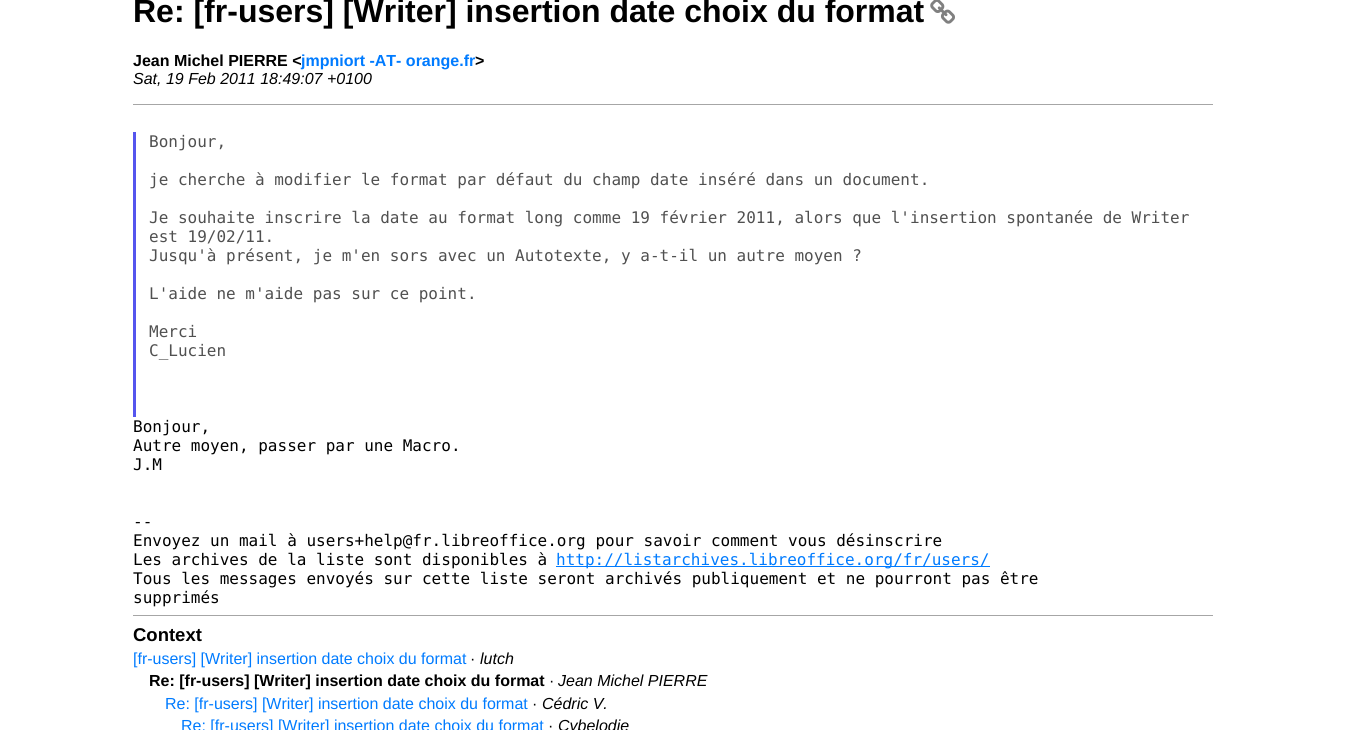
#include <cairo/cairo.h>
#include <math.h>
#include <stddef.h>

typedef struct { double x, y; const char *s; } line_t;
typedef struct { double x, y, w, h; unsigned color; } box_t;
static cairo_t *cr;

static void rgb(unsigned color)
{
	cairo_set_source_rgb(cr, (color >> 16) / 255.0, (color >> 8 & 255) / 255.0, (color & 255) / 255.0);
}

static void image(const char *path, double x, double y, double w, double h)
{
	cairo_surface_t *image = cairo_image_surface_create_from_png(path);
	cairo_save(cr);
	cairo_set_source_surface(cr, image, x, y);
	cairo_rectangle(cr, x, y, w, h);
	cairo_fill(cr);
	cairo_restore(cr);
	cairo_surface_destroy(image);
}

int main(void) {
	cairo_surface_t *surface = cairo_image_surface_create(CAIRO_FORMAT_RGB24, 1345, 730);
	cr = cairo_create(surface);
	cairo_font_options_t *options = cairo_font_options_create();
	cairo_font_options_set_hint_metrics(options, CAIRO_HINT_METRICS_OFF);
	cairo_font_options_set_hint_style(options, CAIRO_HINT_STYLE_NONE);
	cairo_set_font_options(cr, options);
	cairo_set_miter_limit(cr, 4);
	rgb(0xffffff);
	cairo_paint(cr);
	image("img/1.png", 930, 0, 25, 24);
	{
		static const box_t items[] = {
			{133, 104, 1080, 1, 0xa6a6a6},
			{133, 132, 3, 285, 0x5555ee},
			{556, 566, 434, 1, 0x007bff},
			{133, 615, 1080, 1, 0xa6a6a6},
		};
		for (size_t i = 0; i < sizeof items / sizeof *items; i++) {
			rgb(items[i].color);
			cairo_rectangle(cr, items[i].x, items[i].y, items[i].w, items[i].h);
			cairo_fill(cr);
		}
	}
	cairo_select_font_face(cr, "Liberation Sans", CAIRO_FONT_SLANT_NORMAL, CAIRO_FONT_WEIGHT_BOLD);
	cairo_set_font_size(cr, 32);
	rgb(0x000000);
	cairo_move_to(cr, 133, 22);
	cairo_show_text(cr, "Re: [fr-users] [Writer] insertion date choix du format");
	cairo_set_font_size(cr, 16);
	cairo_move_to(cr, 133, 66);
	cairo_show_text(cr, "Jean Michel PIERRE <");
	rgb(0x007bff);
	cairo_move_to(cr, 301, 66);
	cairo_show_text(cr, "jmpniort -AT- orange.fr");
	rgb(0x000000);
	cairo_move_to(cr, 475, 66);
	cairo_show_text(cr, ">");
	cairo_select_font_face(cr, "Liberation Sans", CAIRO_FONT_SLANT_ITALIC, CAIRO_FONT_WEIGHT_NORMAL);
	cairo_move_to(cr, 133, 84);
	cairo_show_text(cr, "Sat, 19 Feb 2011 18:49:07 +0100");
	cairo_select_font_face(cr, "DejaVu Sans Mono", CAIRO_FONT_SLANT_NORMAL, CAIRO_FONT_WEIGHT_NORMAL);
	rgb(0x505050);
	{
		static const line_t items[] = {
			{149, 147, "Bonjour,"},
			{149, 185, "je cherche à modifier le format par défaut du champ date inséré dans un document."},
			{149, 223, "Je souhaite inscrire la date au format long comme 19 février 2011, alors que l'insertion spontanée de Writer"},
			{149, 242, "est 19/02/11."},
			{149, 261, "Jusqu'à présent, je m'en sors avec un Autotexte, y a-t-il un autre moyen ?"},
			{149, 299, "L'aide ne m'aide pas sur ce point."},
			{149, 337, "Merci"},
			{149, 356, "C_Lucien"},
		};
		for (size_t i = 0; i < sizeof items / sizeof *items; i++) {
			cairo_move_to(cr, items[i].x, items[i].y);
			cairo_show_text(cr, items[i].s);
		}
	}
	rgb(0x000000);
	{
		static const line_t items[] = {
			{133, 432, "Bonjour,"},
			{133, 451, "Autre moyen, passer par une Macro."},
			{133, 470, "J.M"},
			{133, 527, "--"},
			{133, 546, "Envoyez un mail à users+help@fr.libreoffice.org pour savoir comment vous désinscrire"},
			{133, 565, "Les archives de la liste sont disponibles à"},
		};
		for (size_t i = 0; i < sizeof items / sizeof *items; i++) {
			cairo_move_to(cr, items[i].x, items[i].y);
			cairo_show_text(cr, items[i].s);
		}
	}
	rgb(0x007bff);
	cairo_move_to(cr, 556, 565);
	cairo_show_text(cr, "http://listarchives.libreoffice.org/fr/users/");
	rgb(0x000000);
	cairo_move_to(cr, 133, 584);
	cairo_show_text(cr, "Tous les messages envoyés sur cette liste seront archivés publiquement et ne pourront pas être");
	cairo_move_to(cr, 133, 603);
	cairo_show_text(cr, "supprimés");
	cairo_select_font_face(cr, "Liberation Sans", CAIRO_FONT_SLANT_NORMAL, CAIRO_FONT_WEIGHT_BOLD);
	cairo_set_font_size(cr, 18.5);
	cairo_move_to(cr, 133, 641);
	cairo_show_text(cr, "Context");
	cairo_select_font_face(cr, "Liberation Sans", CAIRO_FONT_SLANT_NORMAL, CAIRO_FONT_WEIGHT_NORMAL);
	cairo_set_font_size(cr, 16);
	rgb(0x007bff);
	cairo_move_to(cr, 133, 664);
	cairo_show_text(cr, "[fr-users] [Writer] insertion date choix du format");
	rgb(0x000000);
	cairo_move_to(cr, 470, 664);
	cairo_show_text(cr, "·");
	cairo_select_font_face(cr, "Liberation Sans", CAIRO_FONT_SLANT_ITALIC, CAIRO_FONT_WEIGHT_NORMAL);
	cairo_move_to(cr, 480, 664);
	cairo_show_text(cr, "lutch");
	cairo_select_font_face(cr, "Liberation Sans", CAIRO_FONT_SLANT_NORMAL, CAIRO_FONT_WEIGHT_BOLD);
	cairo_move_to(cr, 149, 686);
	cairo_show_text(cr, "Re: [fr-users] [Writer] insertion date choix du format");
	cairo_select_font_face(cr, "Liberation Sans", CAIRO_FONT_SLANT_NORMAL, CAIRO_FONT_WEIGHT_NORMAL);
	cairo_move_to(cr, 549, 686);
	cairo_show_text(cr, "·");
	cairo_select_font_face(cr, "Liberation Sans", CAIRO_FONT_SLANT_ITALIC, CAIRO_FONT_WEIGHT_NORMAL);
	cairo_move_to(cr, 558, 686);
	cairo_show_text(cr, "Jean Michel PIERRE");
	cairo_select_font_face(cr, "Liberation Sans", CAIRO_FONT_SLANT_NORMAL, CAIRO_FONT_WEIGHT_NORMAL);
	rgb(0x007bff);
	cairo_move_to(cr, 165, 709);
	cairo_show_text(cr, "Re: [fr-users] [Writer] insertion date choix du format");
	rgb(0x000000);
	cairo_move_to(cr, 532, 709);
	cairo_show_text(cr, "·");
	cairo_select_font_face(cr, "Liberation Sans", CAIRO_FONT_SLANT_ITALIC, CAIRO_FONT_WEIGHT_NORMAL);
	cairo_move_to(cr, 542, 709);
	cairo_show_text(cr, "Cédric V.");
	cairo_select_font_face(cr, "Liberation Sans", CAIRO_FONT_SLANT_NORMAL, CAIRO_FONT_WEIGHT_NORMAL);
	rgb(0x007bff);
	cairo_move_to(cr, 181, 731);
	cairo_show_text(cr, "Re: [fr-users] [Writer] insertion date choix du format");
	rgb(0x000000);
	cairo_move_to(cr, 548, 731);
	cairo_show_text(cr, "·");
	cairo_select_font_face(cr, "Liberation Sans", CAIRO_FONT_SLANT_ITALIC, CAIRO_FONT_WEIGHT_NORMAL);
	cairo_move_to(cr, 558, 731);
	cairo_show_text(cr, "Cybelodie");
	cairo_surface_write_to_png(surface, "page.png");
	cairo_font_options_destroy(options);
	cairo_destroy(cr);
	cairo_surface_destroy(surface);
	return 0;
}
